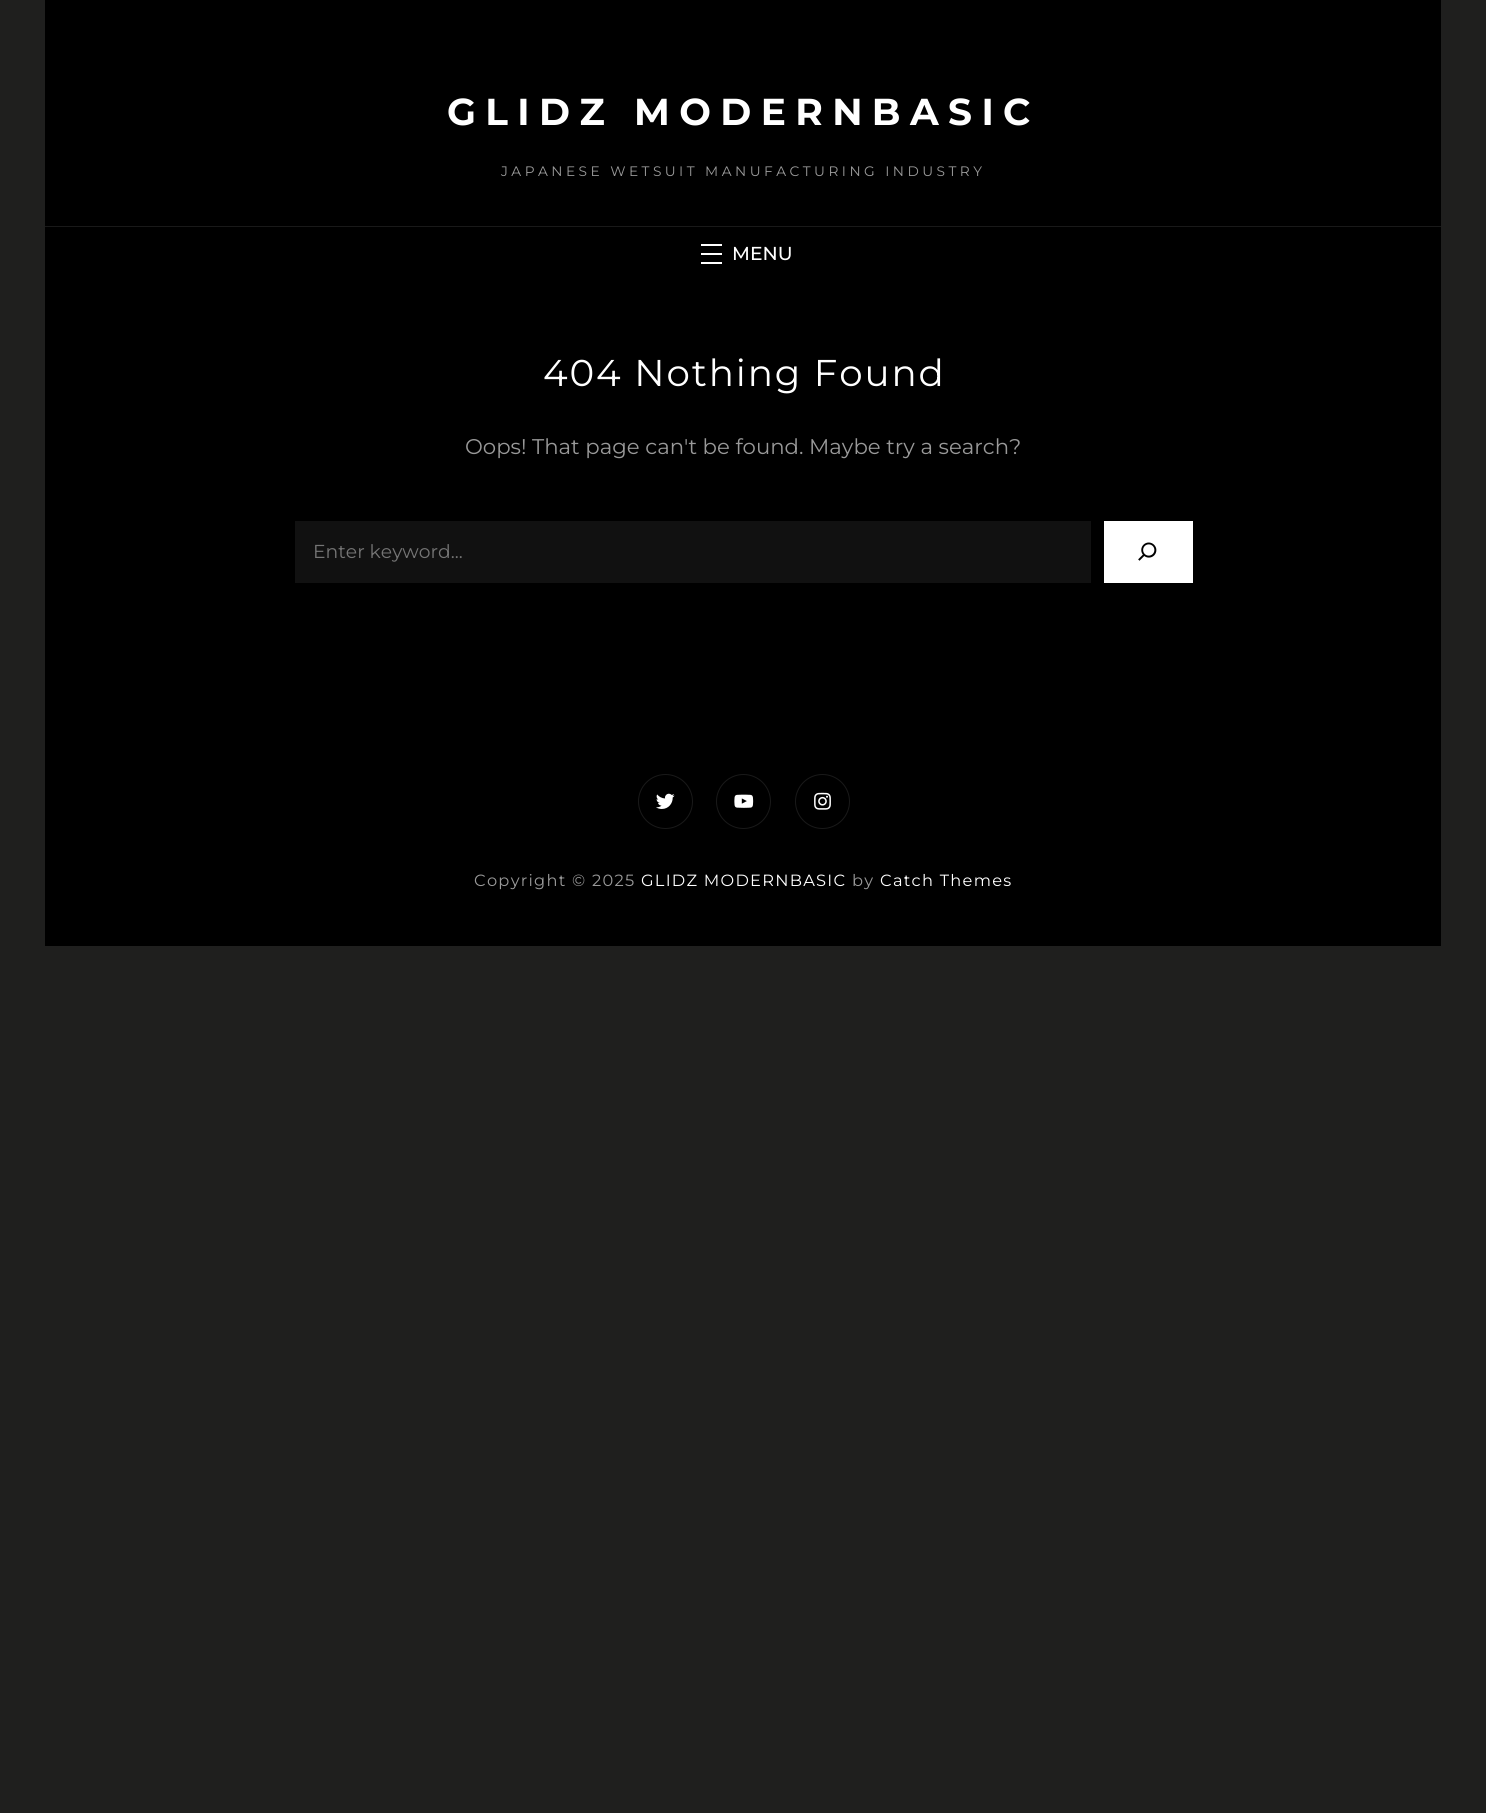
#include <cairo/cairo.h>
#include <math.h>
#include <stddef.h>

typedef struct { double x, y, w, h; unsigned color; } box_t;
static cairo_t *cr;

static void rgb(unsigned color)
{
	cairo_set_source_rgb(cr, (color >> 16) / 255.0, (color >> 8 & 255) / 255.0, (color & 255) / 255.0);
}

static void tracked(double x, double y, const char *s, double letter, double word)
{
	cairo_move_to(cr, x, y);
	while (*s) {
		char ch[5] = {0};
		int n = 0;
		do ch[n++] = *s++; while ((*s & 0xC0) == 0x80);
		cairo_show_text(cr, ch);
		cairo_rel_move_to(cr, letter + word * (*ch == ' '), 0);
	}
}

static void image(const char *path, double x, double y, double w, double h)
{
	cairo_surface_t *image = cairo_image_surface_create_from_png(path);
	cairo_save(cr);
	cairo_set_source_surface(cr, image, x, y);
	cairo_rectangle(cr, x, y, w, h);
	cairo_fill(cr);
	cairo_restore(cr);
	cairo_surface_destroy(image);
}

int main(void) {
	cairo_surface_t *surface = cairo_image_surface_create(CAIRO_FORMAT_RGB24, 1486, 1813);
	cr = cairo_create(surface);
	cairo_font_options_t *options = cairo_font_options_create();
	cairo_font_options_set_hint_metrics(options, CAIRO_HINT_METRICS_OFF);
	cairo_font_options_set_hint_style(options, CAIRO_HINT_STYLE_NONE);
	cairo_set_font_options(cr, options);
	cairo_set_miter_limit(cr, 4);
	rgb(0x1f1f1e);
	cairo_paint(cr);
	{
		static const box_t items[] = {
			{45, 0, 1396, 946, 0x000000},
			{45, 226, 1396, 1, 0x191919},
			{701, 244, 21, 2, 0xffffff},
			{701, 253, 21, 2, 0xffffff},
			{701, 262, 21, 2, 0xffffff},
			{295, 521, 796, 62, 0x111111},
			{1104, 521, 89, 62, 0xffffff},
		};
		for (size_t i = 0; i < sizeof items / sizeof *items; i++) {
			rgb(items[i].color);
			cairo_rectangle(cr, items[i].x, items[i].y, items[i].w, items[i].h);
			cairo_fill(cr);
		}
	}
	image("img/1.png", 1138, 542, 19, 19);
	cairo_arc(cr, 665.5, 801.5, 27, 0, 2 * M_PI);
	rgb(0x191919);
	cairo_set_line_width(cr, 1);
	cairo_stroke(cr);
	image("img/2.png", 656, 793, 19, 16);
	cairo_arc(cr, 743.5, 801.5, 27, 0, 2 * M_PI);
	cairo_stroke(cr);
	image("img/3.png", 734, 794, 20, 14);
	cairo_arc(cr, 822.5, 801.5, 27, 0, 2 * M_PI);
	cairo_stroke(cr);
	image("img/4.png", 814, 792, 17, 18);
	cairo_select_font_face(cr, "Montserrat", CAIRO_FONT_SLANT_NORMAL, CAIRO_FONT_WEIGHT_BOLD);
	cairo_set_font_size(cr, 37.5);
	rgb(0xffffff);
	tracked(447, 125, "GLIDZ MODERNBASIC", 9.4, 0);
	cairo_select_font_face(cr, "Montserrat", CAIRO_FONT_SLANT_NORMAL, CAIRO_FONT_WEIGHT_NORMAL);
	cairo_set_font_size(cr, 13.75);
	rgb(0x999999);
	tracked(501, 176, "JAPANESE WETSUIT MANUFACTURING INDUSTRY", 3.45, 0);
	cairo_select_font_face(cr, "Montserrat Medium", CAIRO_FONT_SLANT_NORMAL, CAIRO_FONT_WEIGHT_NORMAL);
	cairo_set_font_size(cr, 18.75);
	rgb(0xffffff);
	cairo_move_to(cr, 732, 260);
	cairo_show_text(cr, "MENU");
	cairo_select_font_face(cr, "Montserrat", CAIRO_FONT_SLANT_NORMAL, CAIRO_FONT_WEIGHT_NORMAL);
	cairo_set_font_size(cr, 37.25);
	tracked(543, 386, "404 Nothing Found", 1.9, 0);
	cairo_set_font_size(cr, 21.25);
	rgb(0x999999);
	cairo_move_to(cr, 465, 454);
	cairo_show_text(cr, "Oops! That page can't be found. Maybe try a search?");
	cairo_set_font_size(cr, 18.75);
	rgb(0x757575);
	cairo_move_to(cr, 313, 558);
	cairo_show_text(cr, "Enter keyword...");
	cairo_set_font_size(cr, 16.25);
	rgb(0x999999);
	tracked(474, 886, "Copyright © 2025", 1.25, 0);
	rgb(0xffffff);
	tracked(641, 886, "GLIDZ MODERNBASIC", 1.25, 0);
	rgb(0x999999);
	tracked(852, 886, "by", 1.25, 0);
	rgb(0xffffff);
	tracked(880, 886, "Catch Themes", 1.25, 0);
	cairo_surface_write_to_png(surface, "page.png");
	cairo_font_options_destroy(options);
	cairo_destroy(cr);
	cairo_surface_destroy(surface);
	return 0;
}
